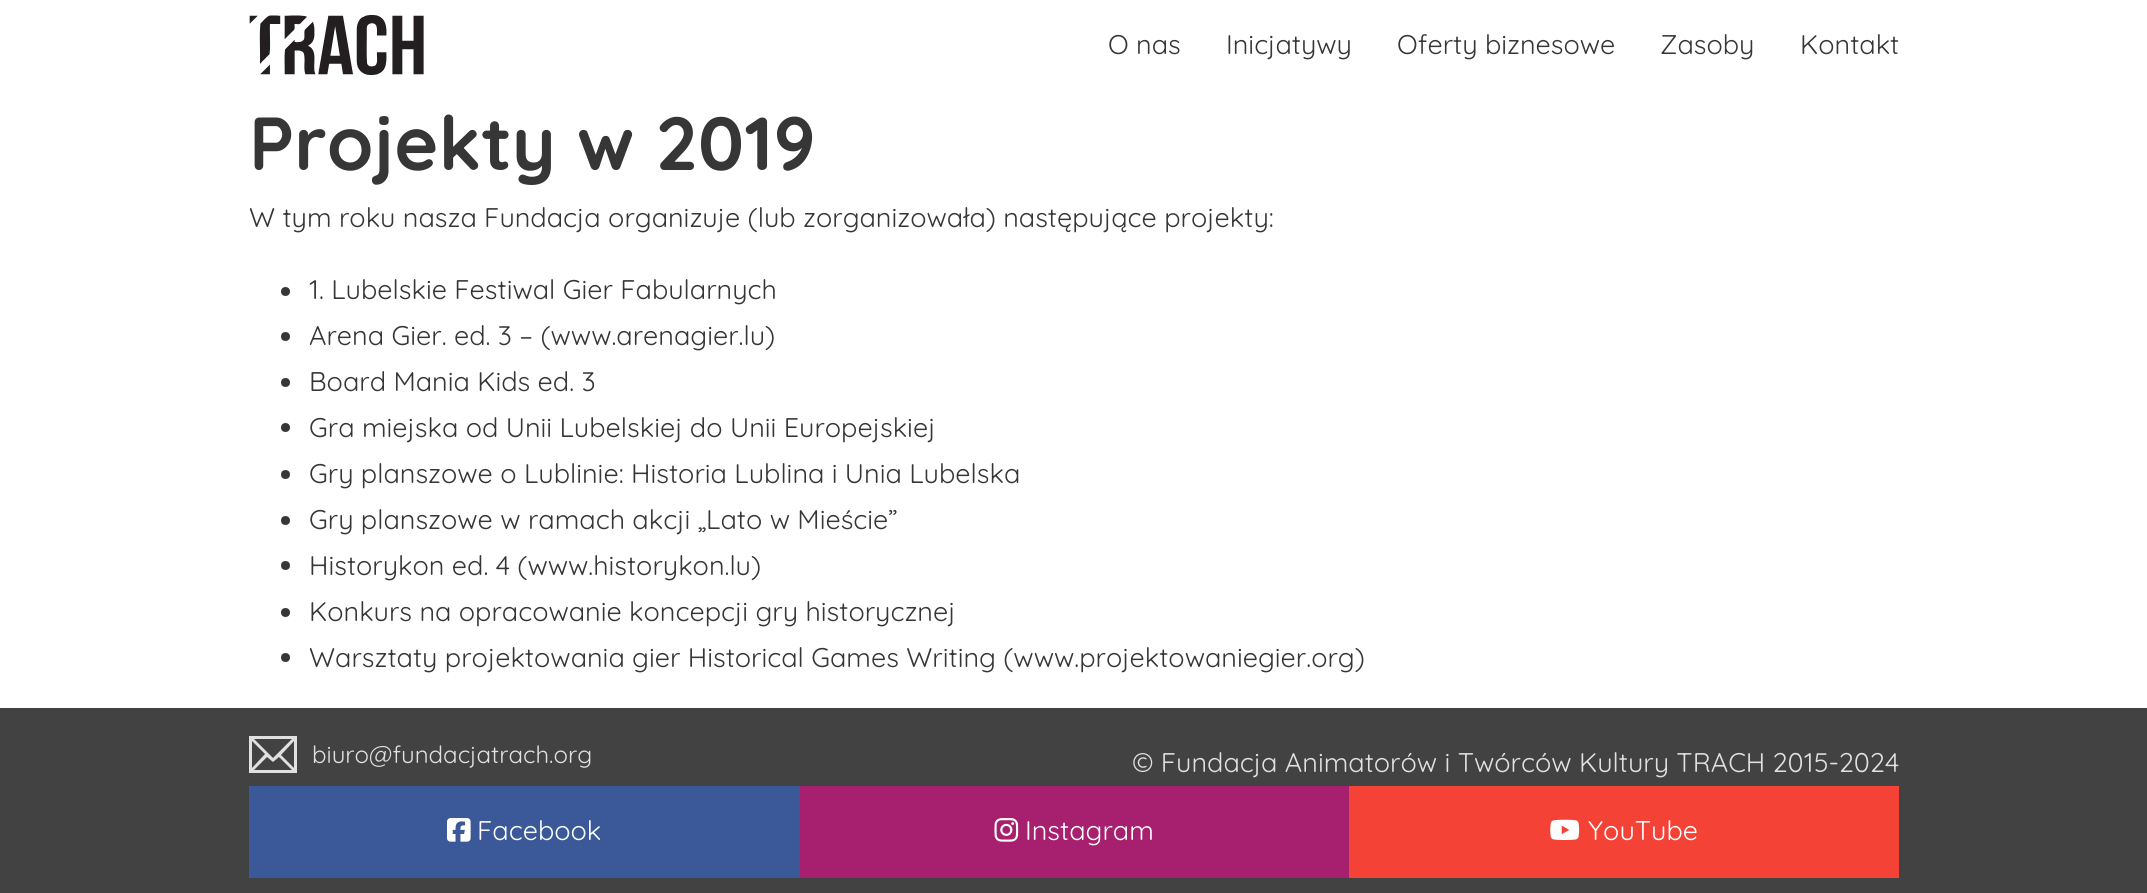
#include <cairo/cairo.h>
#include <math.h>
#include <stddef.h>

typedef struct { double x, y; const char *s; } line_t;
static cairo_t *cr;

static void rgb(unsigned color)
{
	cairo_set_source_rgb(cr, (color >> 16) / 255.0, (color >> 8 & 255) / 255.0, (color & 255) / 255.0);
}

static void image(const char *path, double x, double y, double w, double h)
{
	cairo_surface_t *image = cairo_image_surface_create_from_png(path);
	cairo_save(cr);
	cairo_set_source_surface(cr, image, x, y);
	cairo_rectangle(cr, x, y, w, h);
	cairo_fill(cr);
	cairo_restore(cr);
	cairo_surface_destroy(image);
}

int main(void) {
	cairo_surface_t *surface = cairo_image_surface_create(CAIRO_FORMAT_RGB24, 2147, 893);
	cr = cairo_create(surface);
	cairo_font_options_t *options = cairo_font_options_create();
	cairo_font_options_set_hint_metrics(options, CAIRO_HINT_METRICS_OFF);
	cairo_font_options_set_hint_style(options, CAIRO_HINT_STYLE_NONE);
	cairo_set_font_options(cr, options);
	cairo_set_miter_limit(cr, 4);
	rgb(0xffffff);
	cairo_paint(cr);
	image("img/1.png", 249, 15, 175, 60);
	rgb(0x363636);
	cairo_arc(cr, 285.5, 291.5, 4.5, 0, 2 * M_PI);
	cairo_fill(cr);
	cairo_arc(cr, 285.5, 336.5, 4.5, 0, 2 * M_PI);
	cairo_fill(cr);
	cairo_arc(cr, 285.5, 382.5, 4.5, 0, 2 * M_PI);
	cairo_fill(cr);
	cairo_arc(cr, 285.5, 427.5, 4.5, 0, 2 * M_PI);
	cairo_fill(cr);
	cairo_arc(cr, 285.5, 474.5, 4.5, 0, 2 * M_PI);
	cairo_fill(cr);
	cairo_arc(cr, 285.5, 520.5, 4.5, 0, 2 * M_PI);
	cairo_fill(cr);
	cairo_arc(cr, 285.5, 565.5, 4.5, 0, 2 * M_PI);
	cairo_fill(cr);
	cairo_arc(cr, 285.5, 612.5, 4.5, 0, 2 * M_PI);
	cairo_fill(cr);
	cairo_arc(cr, 285.5, 657.5, 4.5, 0, 2 * M_PI);
	cairo_fill(cr);
	rgb(0x424242);
	cairo_rectangle(cr, 0, 708, 2147, 185);
	cairo_fill(cr);
	rgb(0xe0e0e0);
	cairo_new_path(cr);
	cairo_move_to(cr, 249, 736);
	cairo_line_to(cr, 249, 773);
	cairo_line_to(cr, 297, 773);
	cairo_line_to(cr, 297, 736);
	cairo_close_path(cr);
	cairo_move_to(cr, 273, 758);
	cairo_line_to(cr, 254, 739);
	cairo_line_to(cr, 292, 739);
	cairo_close_path(cr);
	cairo_move_to(cr, 265, 754);
	cairo_line_to(cr, 252, 768);
	cairo_line_to(cr, 252, 741);
	cairo_close_path(cr);
	cairo_move_to(cr, 267, 757);
	cairo_line_to(cr, 273, 762);
	cairo_line_to(cr, 279, 757);
	cairo_line_to(cr, 292, 770);
	cairo_line_to(cr, 254, 770);
	cairo_close_path(cr);
	cairo_move_to(cr, 281, 755);
	cairo_line_to(cr, 294, 741);
	cairo_line_to(cr, 294, 768);
	cairo_close_path(cr);
	cairo_fill(cr);
	rgb(0x3b5998);
	cairo_rectangle(cr, 249, 786, 551, 92);
	cairo_fill(cr);
	image("img/2.png", 447, 818, 24, 24);
	rgb(0xa7206f);
	cairo_rectangle(cr, 800, 786, 549, 92);
	cairo_fill(cr);
	image("img/3.png", 994, 818, 25, 24);
	rgb(0xf44336);
	cairo_rectangle(cr, 1349, 786, 550, 92);
	cairo_fill(cr);
	image("img/4.png", 1550, 819, 30, 21);
	cairo_select_font_face(cr, "Quicksand", CAIRO_FONT_SLANT_NORMAL, CAIRO_FONT_WEIGHT_NORMAL);
	cairo_set_font_size(cr, 27);
	rgb(0x363636);
	{
		static const line_t items[] = {
			{1108, 54, "O nas"},
			{1226, 54, "Inicjatywy"},
			{1397, 54, "Oferty biznesowe"},
			{1660, 54, "Zasoby"},
			{1800, 54, "Kontakt"},
		};
		for (size_t i = 0; i < sizeof items / sizeof *items; i++) {
			cairo_move_to(cr, items[i].x, items[i].y);
			cairo_show_text(cr, items[i].s);
		}
	}
	cairo_select_font_face(cr, "Quicksand", CAIRO_FONT_SLANT_NORMAL, CAIRO_FONT_WEIGHT_BOLD);
	cairo_set_font_size(cr, 75);
	cairo_move_to(cr, 249, 170);
	cairo_show_text(cr, "Projekty w 2019");
	cairo_select_font_face(cr, "Quicksand", CAIRO_FONT_SLANT_NORMAL, CAIRO_FONT_WEIGHT_NORMAL);
	cairo_set_font_size(cr, 27);
	{
		static const line_t items[] = {
			{249, 227, "W tym roku nasza Fundacja organizuje (lub zorganizowała) następujące projekty:"},
			{309, 299, "1. Lubelskie Festiwal Gier Fabularnych"},
			{309, 345, "Arena Gier. ed. 3 – (www.arenagier.lu)"},
			{309, 391, "Board Mania Kids ed. 3"},
			{309, 437, "Gra miejska od Unii Lubelskiej do Unii Europejskiej"},
			{309, 483, "Gry planszowe o Lublinie: Historia Lublina i Unia Lubelska"},
			{309, 529, "Gry planszowe w ramach akcji „Lato w Mieście”"},
			{309, 575, "Historykon ed. 4 (www.historykon.lu)"},
			{309, 621, "Konkurs na opracowanie koncepcji gry historycznej"},
			{309, 667, "Warsztaty projektowania gier Historical Games Writing (www.projektowaniegier.org)"},
		};
		for (size_t i = 0; i < sizeof items / sizeof *items; i++) {
			cairo_move_to(cr, items[i].x, items[i].y);
			cairo_show_text(cr, items[i].s);
		}
	}
	cairo_set_font_size(cr, 24);
	rgb(0xe0e0e0);
	cairo_move_to(cr, 312, 763);
	cairo_show_text(cr, "biuro@fundacjatrach.org");
	cairo_set_font_size(cr, 27);
	cairo_move_to(cr, 1132, 772);
	cairo_show_text(cr, "© Fundacja Animatorów i Twórców Kultury TRACH 2015-2024");
	rgb(0xffffff);
	{
		static const line_t items[] = {
			{477, 840, "Facebook"},
			{1025, 840, "Instagram"},
			{1588, 840, "YouTube"},
		};
		for (size_t i = 0; i < sizeof items / sizeof *items; i++) {
			cairo_move_to(cr, items[i].x, items[i].y);
			cairo_show_text(cr, items[i].s);
		}
	}
	cairo_surface_write_to_png(surface, "page.png");
	cairo_font_options_destroy(options);
	cairo_destroy(cr);
	cairo_surface_destroy(surface);
	return 0;
}
